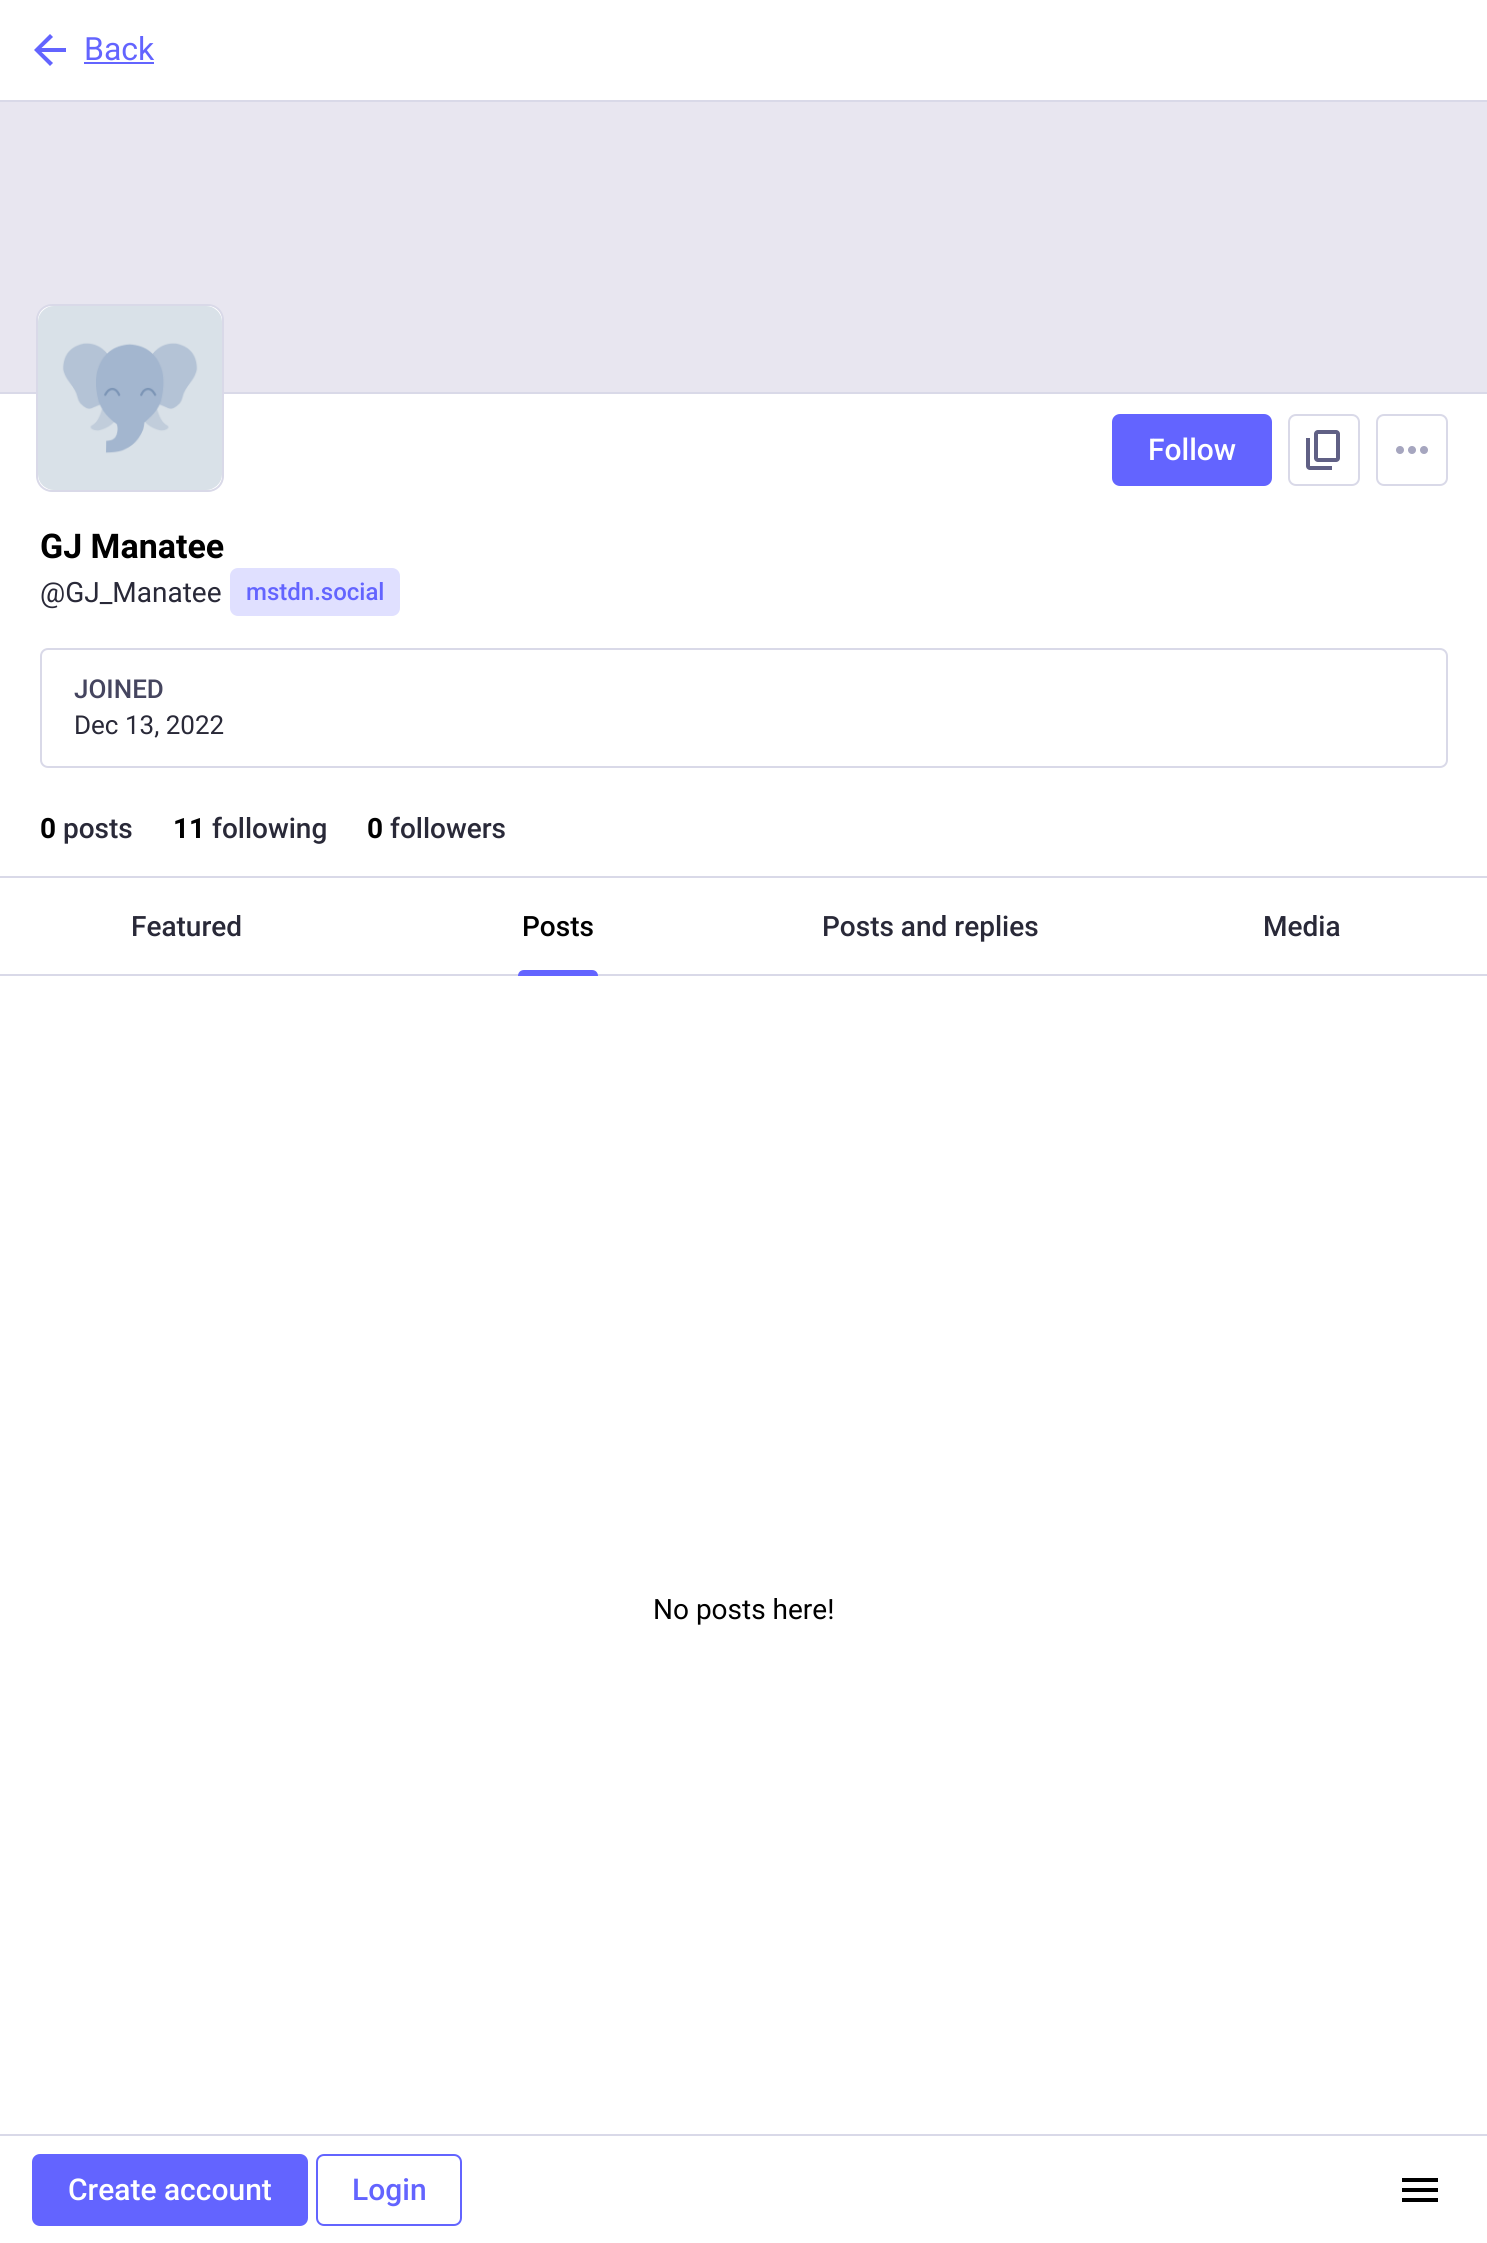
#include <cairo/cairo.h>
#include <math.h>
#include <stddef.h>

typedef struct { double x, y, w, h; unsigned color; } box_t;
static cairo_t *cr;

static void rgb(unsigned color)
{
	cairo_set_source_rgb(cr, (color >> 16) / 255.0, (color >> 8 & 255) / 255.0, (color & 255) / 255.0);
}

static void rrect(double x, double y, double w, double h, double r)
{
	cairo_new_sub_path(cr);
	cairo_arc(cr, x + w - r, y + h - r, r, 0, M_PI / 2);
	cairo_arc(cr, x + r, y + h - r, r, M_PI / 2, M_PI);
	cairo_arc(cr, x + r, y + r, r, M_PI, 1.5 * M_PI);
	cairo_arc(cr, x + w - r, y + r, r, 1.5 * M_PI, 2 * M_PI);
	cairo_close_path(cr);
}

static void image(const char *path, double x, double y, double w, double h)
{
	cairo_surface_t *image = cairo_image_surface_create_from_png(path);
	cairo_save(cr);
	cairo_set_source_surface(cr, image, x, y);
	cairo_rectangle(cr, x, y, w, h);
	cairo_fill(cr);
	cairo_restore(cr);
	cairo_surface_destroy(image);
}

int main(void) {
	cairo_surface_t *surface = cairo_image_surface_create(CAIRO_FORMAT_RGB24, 1487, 2243);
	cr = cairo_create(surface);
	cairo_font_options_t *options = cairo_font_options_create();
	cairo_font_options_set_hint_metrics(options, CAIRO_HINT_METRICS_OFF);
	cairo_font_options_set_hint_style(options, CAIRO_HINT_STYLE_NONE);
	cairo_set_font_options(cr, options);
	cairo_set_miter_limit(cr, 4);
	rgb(0xffffff);
	cairo_paint(cr);
	rgb(0xd9d9e8);
	cairo_rectangle(cr, 0, 100, 1487, 2);
	cairo_fill(cr);
	rgb(0x6364ff);
	cairo_new_path(cr);
	cairo_move_to(cr, 41.5, 52);
	cairo_line_to(cr, 53, 63);
	cairo_line_to(cr, 50, 66);
	cairo_line_to(cr, 34, 50);
	cairo_line_to(cr, 50, 34);
	cairo_line_to(cr, 53, 37);
	cairo_line_to(cr, 41.5, 48);
	cairo_line_to(cr, 66, 48);
	cairo_line_to(cr, 66, 52);
	cairo_close_path(cr);
	cairo_fill(cr);
	{
		static const box_t items[] = {
			{84, 62, 70, 2, 0x6364ff},
			{0, 102, 1487, 290, 0xe8e6f0},
			{0, 392, 1487, 2, 0xd9d9e8},
			{0, 876, 1487, 2, 0xd9d9e8},
		};
		for (size_t i = 0; i < sizeof items / sizeof *items; i++) {
			rgb(items[i].color);
			cairo_rectangle(cr, items[i].x, items[i].y, items[i].w, items[i].h);
			cairo_fill(cr);
		}
	}
	rgb(0xffffff);
	rrect(37, 305, 186, 186, 15);
	cairo_fill_preserve(cr);
	rgb(0xd9d9e8);
	cairo_stroke(cr);
	image("img/1.png", 38, 306, 184, 184);
	rgb(0x6364ff);
	rrect(1112, 414, 160, 72, 8);
	cairo_fill(cr);
	rrect(1289, 415, 70, 70, 7);
	rgb(0xd9d9e8);
	cairo_stroke(cr);
	image("img/2.png", 1306, 430, 34, 40);
	rrect(1377, 415, 70, 70, 7);
	cairo_stroke(cr);
	image("img/3.png", 1396, 446, 32, 8);
	rgb(0xe0e0ff);
	rrect(230, 568, 170, 48, 8);
	cairo_fill(cr);
	rrect(41, 649, 1406, 118, 7);
	rgb(0xd9d9e8);
	cairo_stroke(cr);
	cairo_rectangle(cr, 0, 974, 1487, 2);
	cairo_fill(cr);
	rgb(0x6364ff);
	cairo_new_path(cr);
	cairo_move_to(cr, 524, 970);
	cairo_line_to(cr, 592, 970);
	cairo_curve_to(cr, 595.5, 970, 598, 972.5, 598, 976);
	cairo_line_to(cr, 518, 976);
	cairo_curve_to(cr, 518, 972.5, 520.5, 970, 524, 970);
	cairo_close_path(cr);
	cairo_fill(cr);
	rgb(0xd9d9e8);
	cairo_rectangle(cr, 0, 2134, 1487, 2);
	cairo_fill(cr);
	rgb(0x6364ff);
	rrect(32, 2154, 276, 72, 8);
	cairo_fill(cr);
	rrect(317, 2155, 144, 70, 7);
	cairo_stroke(cr);
	rgb(0x000000);
	cairo_new_path(cr);
	cairo_move_to(cr, 1402, 2202);
	cairo_line_to(cr, 1402, 2198);
	cairo_line_to(cr, 1438, 2198);
	cairo_line_to(cr, 1438, 2202);
	cairo_close_path(cr);
	cairo_move_to(cr, 1402, 2192);
	cairo_line_to(cr, 1402, 2188);
	cairo_line_to(cr, 1438, 2188);
	cairo_line_to(cr, 1438, 2192);
	cairo_close_path(cr);
	cairo_move_to(cr, 1402, 2182);
	cairo_line_to(cr, 1402, 2178);
	cairo_line_to(cr, 1438, 2178);
	cairo_line_to(cr, 1438, 2182);
	cairo_close_path(cr);
	cairo_fill(cr);
	cairo_select_font_face(cr, "Roboto", CAIRO_FONT_SLANT_NORMAL, CAIRO_FONT_WEIGHT_NORMAL);
	cairo_set_font_size(cr, 32);
	rgb(0x6364ff);
	cairo_move_to(cr, 84, 60);
	cairo_show_text(cr, "Back");
	cairo_select_font_face(cr, "Roboto Medium", CAIRO_FONT_SLANT_NORMAL, CAIRO_FONT_WEIGHT_NORMAL);
	cairo_set_font_size(cr, 30);
	rgb(0xffffff);
	cairo_move_to(cr, 1148, 460);
	cairo_show_text(cr, "Follow");
	cairo_select_font_face(cr, "Roboto", CAIRO_FONT_SLANT_NORMAL, CAIRO_FONT_WEIGHT_BOLD);
	cairo_set_font_size(cr, 34);
	rgb(0x000000);
	cairo_move_to(cr, 40, 558);
	cairo_show_text(cr, "GJ Manatee");
	cairo_select_font_face(cr, "Roboto", CAIRO_FONT_SLANT_NORMAL, CAIRO_FONT_WEIGHT_NORMAL);
	cairo_set_font_size(cr, 28);
	rgb(0x292938);
	cairo_move_to(cr, 40, 602);
	cairo_show_text(cr, "@GJ_Manatee");
	cairo_select_font_face(cr, "Roboto Medium", CAIRO_FONT_SLANT_NORMAL, CAIRO_FONT_WEIGHT_NORMAL);
	cairo_set_font_size(cr, 24);
	rgb(0x6364ff);
	cairo_move_to(cr, 246, 600);
	cairo_show_text(cr, "mstdn.social");
	cairo_set_font_size(cr, 26);
	rgb(0x45455f);
	cairo_move_to(cr, 74, 698);
	cairo_show_text(cr, "JOINED");
	cairo_select_font_face(cr, "Roboto", CAIRO_FONT_SLANT_NORMAL, CAIRO_FONT_WEIGHT_NORMAL);
	rgb(0x292938);
	cairo_move_to(cr, 74, 734);
	cairo_show_text(cr, "Dec 13, 2022");
	cairo_select_font_face(cr, "Roboto", CAIRO_FONT_SLANT_NORMAL, CAIRO_FONT_WEIGHT_BOLD);
	cairo_set_font_size(cr, 28);
	rgb(0x000000);
	cairo_move_to(cr, 40, 838);
	cairo_show_text(cr, "0");
	cairo_select_font_face(cr, "Roboto Medium", CAIRO_FONT_SLANT_NORMAL, CAIRO_FONT_WEIGHT_NORMAL);
	rgb(0x292938);
	cairo_move_to(cr, 63, 838);
	cairo_show_text(cr, "posts");
	cairo_select_font_face(cr, "Roboto", CAIRO_FONT_SLANT_NORMAL, CAIRO_FONT_WEIGHT_BOLD);
	rgb(0x000000);
	cairo_move_to(cr, 173, 838);
	cairo_show_text(cr, "11");
	cairo_select_font_face(cr, "Roboto Medium", CAIRO_FONT_SLANT_NORMAL, CAIRO_FONT_WEIGHT_NORMAL);
	rgb(0x292938);
	cairo_move_to(cr, 212, 838);
	cairo_show_text(cr, "following");
	cairo_select_font_face(cr, "Roboto", CAIRO_FONT_SLANT_NORMAL, CAIRO_FONT_WEIGHT_BOLD);
	rgb(0x000000);
	cairo_move_to(cr, 367, 838);
	cairo_show_text(cr, "0");
	cairo_select_font_face(cr, "Roboto Medium", CAIRO_FONT_SLANT_NORMAL, CAIRO_FONT_WEIGHT_NORMAL);
	rgb(0x292938);
	cairo_move_to(cr, 390, 838);
	cairo_show_text(cr, "followers");
	cairo_move_to(cr, 131, 936);
	cairo_show_text(cr, "Featured");
	rgb(0x000000);
	cairo_move_to(cr, 522, 936);
	cairo_show_text(cr, "Posts");
	rgb(0x292938);
	cairo_move_to(cr, 822, 936);
	cairo_show_text(cr, "Posts and replies");
	cairo_move_to(cr, 1263, 936);
	cairo_show_text(cr, "Media");
	cairo_select_font_face(cr, "Roboto", CAIRO_FONT_SLANT_NORMAL, CAIRO_FONT_WEIGHT_NORMAL);
	rgb(0x000000);
	cairo_move_to(cr, 653, 1619);
	cairo_show_text(cr, "No posts here!");
	cairo_select_font_face(cr, "Roboto Medium", CAIRO_FONT_SLANT_NORMAL, CAIRO_FONT_WEIGHT_NORMAL);
	cairo_set_font_size(cr, 30);
	rgb(0xffffff);
	cairo_move_to(cr, 68, 2200);
	cairo_show_text(cr, "Create account");
	rgb(0x6364ff);
	cairo_move_to(cr, 352, 2200);
	cairo_show_text(cr, "Login");
	cairo_surface_write_to_png(surface, "page.png");
	cairo_font_options_destroy(options);
	cairo_destroy(cr);
	cairo_surface_destroy(surface);
	return 0;
}
